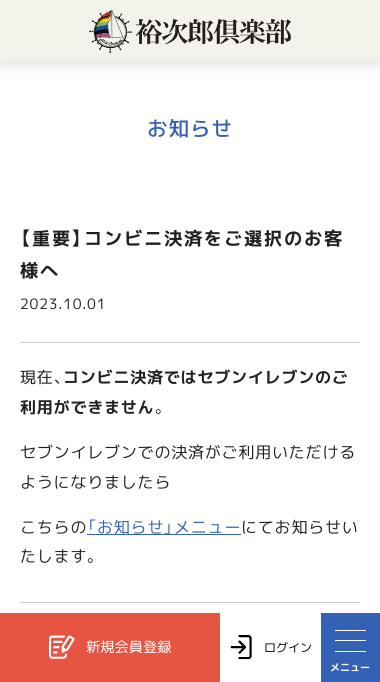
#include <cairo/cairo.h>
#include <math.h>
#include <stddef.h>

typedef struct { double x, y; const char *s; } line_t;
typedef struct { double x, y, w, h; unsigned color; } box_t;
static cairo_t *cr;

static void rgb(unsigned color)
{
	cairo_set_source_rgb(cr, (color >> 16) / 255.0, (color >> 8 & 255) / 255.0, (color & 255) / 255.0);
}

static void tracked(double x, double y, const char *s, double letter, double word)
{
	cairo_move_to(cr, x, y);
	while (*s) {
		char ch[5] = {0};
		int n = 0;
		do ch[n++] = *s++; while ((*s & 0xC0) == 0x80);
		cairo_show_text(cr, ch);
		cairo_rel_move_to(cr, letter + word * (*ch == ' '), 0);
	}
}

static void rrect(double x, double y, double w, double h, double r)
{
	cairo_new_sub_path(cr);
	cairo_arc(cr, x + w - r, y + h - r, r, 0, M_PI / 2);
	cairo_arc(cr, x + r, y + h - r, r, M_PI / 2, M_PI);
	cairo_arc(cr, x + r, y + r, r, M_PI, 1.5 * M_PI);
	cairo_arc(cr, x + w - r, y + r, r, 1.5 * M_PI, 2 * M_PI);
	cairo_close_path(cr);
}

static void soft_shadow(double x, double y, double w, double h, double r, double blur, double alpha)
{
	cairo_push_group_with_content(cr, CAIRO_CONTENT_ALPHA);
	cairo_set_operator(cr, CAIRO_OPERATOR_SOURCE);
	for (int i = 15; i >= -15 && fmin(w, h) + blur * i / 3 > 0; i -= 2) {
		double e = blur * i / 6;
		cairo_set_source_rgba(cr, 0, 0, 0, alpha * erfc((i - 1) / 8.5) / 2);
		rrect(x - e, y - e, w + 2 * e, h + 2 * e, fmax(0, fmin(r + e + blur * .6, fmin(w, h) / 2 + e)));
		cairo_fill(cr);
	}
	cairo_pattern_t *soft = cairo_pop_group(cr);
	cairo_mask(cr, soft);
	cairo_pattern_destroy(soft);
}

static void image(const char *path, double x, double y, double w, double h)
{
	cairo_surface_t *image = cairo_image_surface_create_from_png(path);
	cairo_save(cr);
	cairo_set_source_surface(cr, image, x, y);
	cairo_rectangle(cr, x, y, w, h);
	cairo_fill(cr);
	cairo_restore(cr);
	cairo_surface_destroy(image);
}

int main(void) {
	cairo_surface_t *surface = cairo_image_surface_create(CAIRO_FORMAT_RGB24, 380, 682);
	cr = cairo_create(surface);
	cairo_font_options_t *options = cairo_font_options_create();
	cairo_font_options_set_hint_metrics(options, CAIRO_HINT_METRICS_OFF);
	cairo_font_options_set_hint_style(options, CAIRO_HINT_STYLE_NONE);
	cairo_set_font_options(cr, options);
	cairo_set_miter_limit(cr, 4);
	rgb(0xffffff);
	cairo_paint(cr);
	{
		static const box_t items[] = {
			{20, 342, 340, 1, 0xcccccc},
			{87, 534, 154, 1, 0x3561b5},
			{20, 602, 340, 1, 0xcccccc},
		};
		for (size_t i = 0; i < sizeof items / sizeof *items; i++) {
			rgb(items[i].color);
			cairo_rectangle(cr, items[i].x, items[i].y, items[i].w, items[i].h);
			cairo_fill(cr);
		}
	}
	rgb(0x000000);
	soft_shadow(0, 5, 380, 61, 0, 5, 0.1);
	rgb(0xf4f3eb);
	cairo_rectangle(cr, 0, 0, 380, 61);
	cairo_fill(cr);
	image("img/1.png", 89, 10, 202, 43);
	rgb(0xe55541);
	cairo_rectangle(cr, 0, 613, 220, 69);
	cairo_fill(cr);
	image("img/2.png", 49, 635, 26, 24);
	image("img/3.png", 230, 635, 22, 25);
	{
		static const box_t items[] = {
			{321, 613, 59, 69, 0x3561b5},
			{335, 630, 31, 1, 0xffffff},
			{335, 640, 31, 1, 0xffffff},
			{335, 651, 31, 1, 0xffffff},
		};
		for (size_t i = 0; i < sizeof items / sizeof *items; i++) {
			rgb(items[i].color);
			cairo_rectangle(cr, items[i].x, items[i].y, items[i].w, items[i].h);
			cairo_fill(cr);
		}
	}
	cairo_select_font_face(cr, "M PLUS 1p Medium", CAIRO_FONT_SLANT_NORMAL, CAIRO_FONT_WEIGHT_NORMAL);
	cairo_set_font_size(cr, 20.5);
	rgb(0x3561b5);
	tracked(147, 136, "お知らせ", 1, 0);
	cairo_select_font_face(cr, "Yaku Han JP", CAIRO_FONT_SLANT_NORMAL, CAIRO_FONT_WEIGHT_BOLD);
	cairo_set_font_size(cr, 18.25);
	rgb(0x212121);
	tracked(20, 245, "【", 1.75, 0);
	cairo_select_font_face(cr, "M PLUS 1p", CAIRO_FONT_SLANT_NORMAL, CAIRO_FONT_WEIGHT_BOLD);
	tracked(32, 245, "重要", 1.75, 0);
	cairo_select_font_face(cr, "Yaku Han JP", CAIRO_FONT_SLANT_NORMAL, CAIRO_FONT_WEIGHT_BOLD);
	tracked(72, 245, "】", 1.75, 0);
	cairo_select_font_face(cr, "M PLUS 1p", CAIRO_FONT_SLANT_NORMAL, CAIRO_FONT_WEIGHT_BOLD);
	tracked(84, 245, "コンビニ決済をご選択のお客", 1.75, 0);
	tracked(20, 277, "様へ", 1.75, 0);
	cairo_select_font_face(cr, "M PLUS 1p", CAIRO_FONT_SLANT_NORMAL, CAIRO_FONT_WEIGHT_NORMAL);
	cairo_set_font_size(cr, 14.25);
	tracked(20, 309, "2023.10.01", 0.75, 0);
	cairo_set_font_size(cr, 16);
	tracked(20, 383, "現在", 0.8, 0);
	cairo_select_font_face(cr, "Yaku Han JP", CAIRO_FONT_SLANT_NORMAL, CAIRO_FONT_WEIGHT_NORMAL);
	tracked(54, 383, "、", 0.8, 0);
	cairo_select_font_face(cr, "M PLUS 1p", CAIRO_FONT_SLANT_NORMAL, CAIRO_FONT_WEIGHT_BOLD);
	tracked(63, 383, "コンビニ決済ではセブンイレブンのご", 0.8, 0);
	tracked(20, 413, "利用ができません", 0.8, 0);
	cairo_select_font_face(cr, "Yaku Han JP", CAIRO_FONT_SLANT_NORMAL, CAIRO_FONT_WEIGHT_NORMAL);
	tracked(155, 413, "。", 0.8, 0);
	cairo_select_font_face(cr, "M PLUS 1p", CAIRO_FONT_SLANT_NORMAL, CAIRO_FONT_WEIGHT_NORMAL);
	{
		static const line_t items[] = {
			{20, 458, "セブンイレブンでの決済がご利用いただける"},
			{20, 488, "ようになりましたら"},
			{20, 533, "こちらの"},
		};
		for (size_t i = 0; i < sizeof items / sizeof *items; i++) {
			tracked(items[i].x, items[i].y, items[i].s, 0.8, 0);
		}
	}
	cairo_select_font_face(cr, "Yaku Han JP", CAIRO_FONT_SLANT_NORMAL, CAIRO_FONT_WEIGHT_NORMAL);
	rgb(0x3561b5);
	tracked(87, 533, "「", 0.8, 0);
	cairo_select_font_face(cr, "M PLUS 1p", CAIRO_FONT_SLANT_NORMAL, CAIRO_FONT_WEIGHT_NORMAL);
	tracked(97, 533, "お知らせ", 0.8, 0);
	cairo_select_font_face(cr, "Yaku Han JP", CAIRO_FONT_SLANT_NORMAL, CAIRO_FONT_WEIGHT_NORMAL);
	tracked(164, 533, "」", 0.8, 0);
	cairo_select_font_face(cr, "M PLUS 1p", CAIRO_FONT_SLANT_NORMAL, CAIRO_FONT_WEIGHT_NORMAL);
	tracked(174, 533, "メニュー", 0.8, 0);
	rgb(0x212121);
	tracked(241, 533, "にてお知らせい", 0.8, 0);
	tracked(20, 562, "たします", 0.8, 0);
	cairo_select_font_face(cr, "Yaku Han JP", CAIRO_FONT_SLANT_NORMAL, CAIRO_FONT_WEIGHT_NORMAL);
	tracked(87, 562, "。", 0.8, 0);
	cairo_select_font_face(cr, "M PLUS 1p", CAIRO_FONT_SLANT_NORMAL, CAIRO_FONT_WEIGHT_NORMAL);
	cairo_set_font_size(cr, 14.25);
	rgb(0xffffff);
	cairo_move_to(cr, 86, 652);
	cairo_show_text(cr, "新規会員登録");
	cairo_set_font_size(cr, 12);
	rgb(0x000000);
	cairo_move_to(cr, 264, 652);
	cairo_show_text(cr, "ログイン");
	cairo_select_font_face(cr, "M PLUS 1p", CAIRO_FONT_SLANT_NORMAL, CAIRO_FONT_WEIGHT_BOLD);
	cairo_set_font_size(cr, 10);
	rgb(0xffffff);
	cairo_move_to(cr, 330, 671);
	cairo_show_text(cr, "メニュー");
	cairo_surface_write_to_png(surface, "page.png");
	cairo_font_options_destroy(options);
	cairo_destroy(cr);
	cairo_surface_destroy(surface);
	return 0;
}
